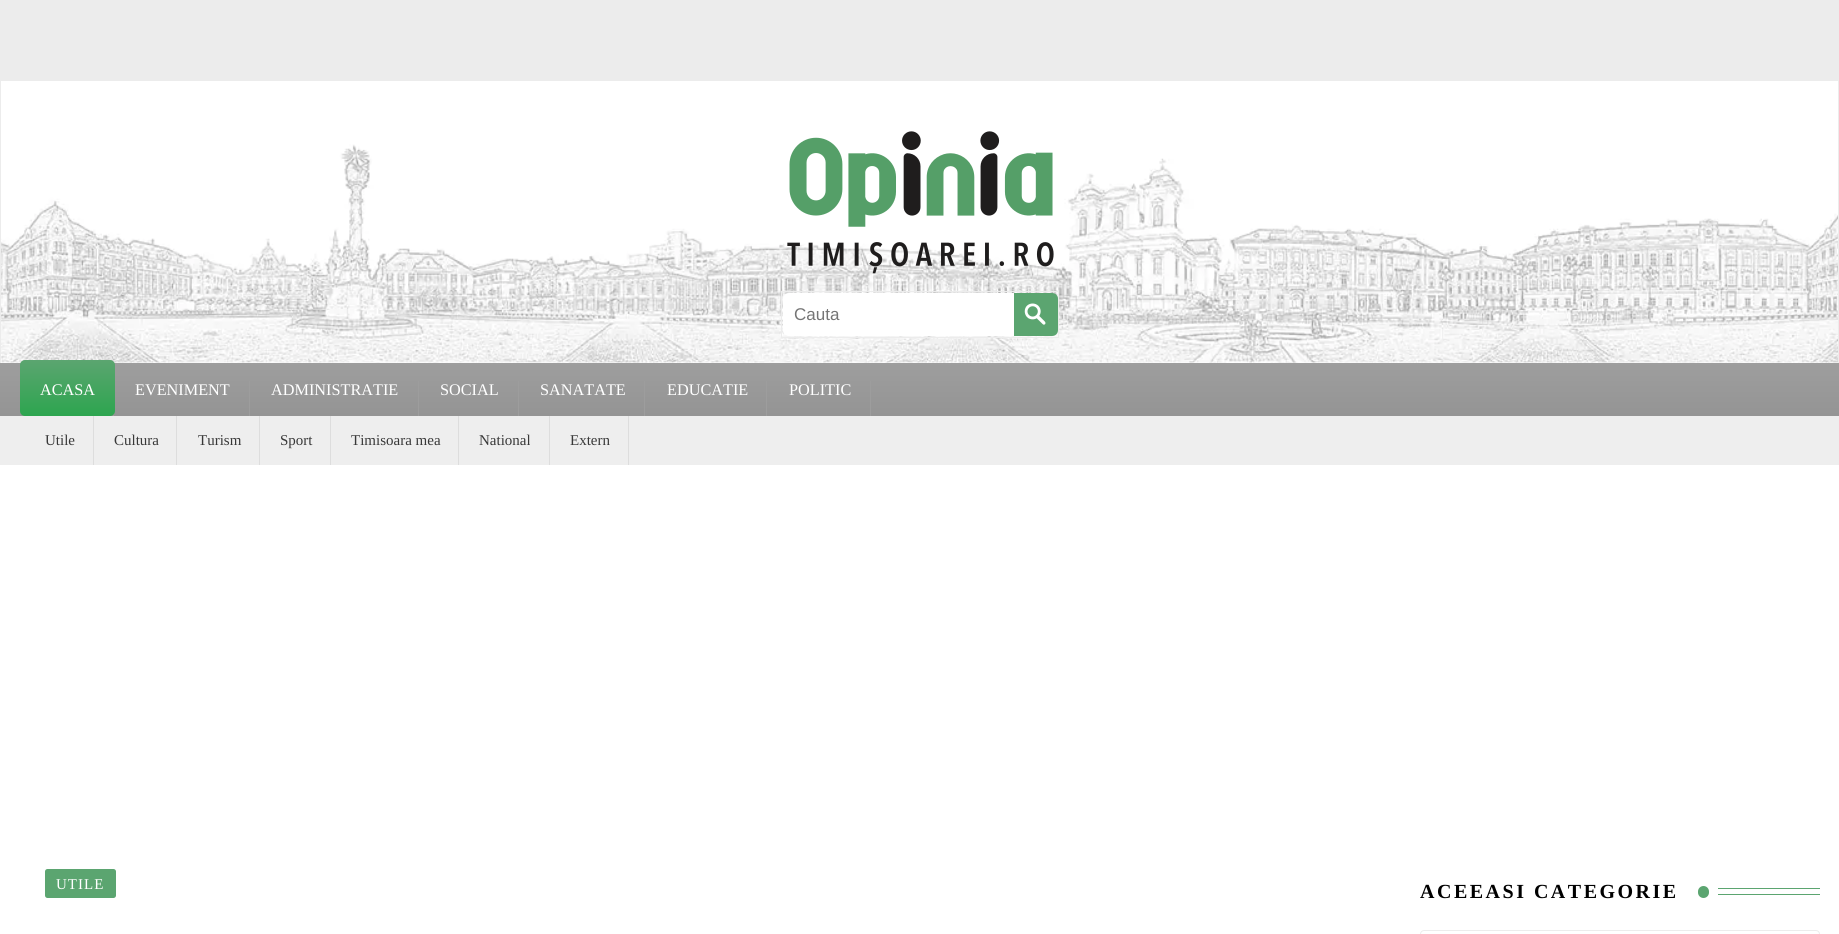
#include <cairo/cairo.h>
#include <math.h>
#include <stddef.h>

typedef struct { double x, y; const char *s; } line_t;
typedef struct { double x, y, w, h; unsigned color; } box_t;
static cairo_t *cr;

static void rgb(unsigned color)
{
	cairo_set_source_rgb(cr, (color >> 16) / 255.0, (color >> 8 & 255) / 255.0, (color & 255) / 255.0);
}

static void tracked(double x, double y, const char *s, double letter, double word)
{
	cairo_move_to(cr, x, y);
	while (*s) {
		char ch[5] = {0};
		int n = 0;
		do ch[n++] = *s++; while ((*s & 0xC0) == 0x80);
		cairo_show_text(cr, ch);
		cairo_rel_move_to(cr, letter + word * (*ch == ' '), 0);
	}
}

static void rrect(double x, double y, double w, double h, double r)
{
	cairo_new_sub_path(cr);
	cairo_arc(cr, x + w - r, y + h - r, r, 0, M_PI / 2);
	cairo_arc(cr, x + r, y + h - r, r, M_PI / 2, M_PI);
	cairo_arc(cr, x + r, y + r, r, M_PI, 1.5 * M_PI);
	cairo_arc(cr, x + w - r, y + r, r, 1.5 * M_PI, 2 * M_PI);
	cairo_close_path(cr);
}

static void image(const char *path, double x, double y, double w, double h)
{
	cairo_surface_t *image = cairo_image_surface_create_from_png(path);
	cairo_save(cr);
	cairo_set_source_surface(cr, image, x, y);
	cairo_rectangle(cr, x, y, w, h);
	cairo_fill(cr);
	cairo_restore(cr);
	cairo_surface_destroy(image);
}

int main(void) {
	cairo_surface_t *surface = cairo_image_surface_create(CAIRO_FORMAT_RGB24, 1839, 934);
	cr = cairo_create(surface);
	cairo_font_options_t *options = cairo_font_options_create();
	cairo_font_options_set_hint_metrics(options, CAIRO_HINT_METRICS_OFF);
	cairo_font_options_set_hint_style(options, CAIRO_HINT_STYLE_NONE);
	cairo_set_font_options(cr, options);
	cairo_set_miter_limit(cr, 4);
	cairo_pattern_t *gradient;
	rgb(0xffffff);
	cairo_paint(cr);
	rgb(0xececec);
	cairo_rectangle(cr, 0, 0, 1839, 81);
	cairo_fill(cr);
	image("img/1.png", 1, 144, 1837, 219);
	cairo_rectangle(cr, 1838, 81, 1, 282);
	cairo_fill(cr);
	cairo_rectangle(cr, 0, 81, 1, 282);
	cairo_fill(cr);
	image("img/2.png", 787, 131, 267, 143);
	cairo_rectangle(cr, 781.5, 291.5, 277, 46);
	cairo_set_line_width(cr, 1);
	cairo_stroke(cr);
	rgb(0xffffff);
	cairo_new_path(cr);
	cairo_move_to(cr, 789, 293);
	cairo_line_to(cr, 1014, 293);
	cairo_line_to(cr, 1014, 336);
	cairo_line_to(cr, 789, 336);
	cairo_curve_to(cr, 785.5, 336, 783, 333.5, 783, 330);
	cairo_line_to(cr, 783, 299);
	cairo_curve_to(cr, 783, 295.5, 785.5, 293, 789, 293);
	cairo_close_path(cr);
	cairo_fill(cr);
	rgb(0x5ba570);
	cairo_new_path(cr);
	cairo_move_to(cr, 1014, 293);
	cairo_line_to(cr, 1052, 293);
	cairo_curve_to(cr, 1055.5, 293, 1058, 295.5, 1058, 299);
	cairo_line_to(cr, 1058, 330);
	cairo_curve_to(cr, 1058, 333.5, 1055.5, 336, 1052, 336);
	cairo_line_to(cr, 1014, 336);
	cairo_close_path(cr);
	cairo_fill(cr);
	image("img/3.png", 1024, 303, 22, 22);
	gradient = cairo_pattern_create_linear(920, 362, 920, 416);
	cairo_pattern_add_color_stop_rgba(gradient, 0, 0.62, 0.62, 0.62, 1);
	cairo_pattern_add_color_stop_rgba(gradient, 1, 0.58, 0.58, 0.58, 1);
	cairo_set_source(cr, gradient);
	cairo_pattern_destroy(gradient);
	cairo_rectangle(cr, 0, 363, 1839, 53);
	cairo_fill(cr);
	rgb(0x9d9d9d);
	cairo_rectangle(cr, 113, 414, 1, 2);
	cairo_fill(cr);
	gradient = cairo_pattern_create_linear(68, 360, 68, 416);
	cairo_pattern_add_color_stop_rgba(gradient, 0, 0.357, 0.647, 0.439, 1);
	cairo_pattern_add_color_stop_rgba(gradient, 1, 0.176, 0.647, 0.31, 1);
	cairo_set_source(cr, gradient);
	cairo_pattern_destroy(gradient);
	rrect(20, 360, 95, 56, 5);
	cairo_fill(cr);
	{
		static const box_t items[] = {
			{249, 381, 1, 35, 0x9d9d9d},
			{418, 381, 1, 35, 0x9d9d9d},
			{518, 381, 1, 35, 0x9d9d9d},
			{644, 381, 1, 35, 0x9d9d9d},
			{766, 381, 1, 35, 0x9d9d9d},
			{870, 381, 1, 35, 0x9d9d9d},
			{0, 416, 1839, 49, 0xeeeeee},
			{93, 416, 1, 49, 0xdddddd},
			{176, 416, 1, 49, 0xdddddd},
			{259, 416, 1, 49, 0xdddddd},
			{330, 416, 1, 49, 0xdddddd},
			{458, 416, 1, 49, 0xdddddd},
			{549, 416, 1, 49, 0xdddddd},
			{628, 416, 1, 49, 0xdddddd},
		};
		for (size_t i = 0; i < sizeof items / sizeof *items; i++) {
			rgb(items[i].color);
			cairo_rectangle(cr, items[i].x, items[i].y, items[i].w, items[i].h);
			cairo_fill(cr);
		}
	}
	rgb(0x5ba570);
	rrect(45, 869, 71, 29, 2.5);
	cairo_fill(cr);
	rrect(1698, 886, 11, 12, 5.5);
	cairo_fill(cr);
	cairo_rectangle(cr, 1718, 888, 102, 1);
	cairo_fill(cr);
	cairo_rectangle(cr, 1718, 894, 102, 1);
	cairo_fill(cr);
	rrect(1420.5, 930.5, 399, 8, 3.5);
	rgb(0xececec);
	cairo_stroke(cr);
	cairo_select_font_face(cr, "Liberation Sans", CAIRO_FONT_SLANT_NORMAL, CAIRO_FONT_WEIGHT_NORMAL);
	cairo_set_font_size(cr, 17);
	rgb(0x757575);
	cairo_move_to(cr, 794, 320);
	cairo_show_text(cr, "Cauta");
	cairo_select_font_face(cr, "Liberation Serif", CAIRO_FONT_SLANT_NORMAL, CAIRO_FONT_WEIGHT_NORMAL);
	cairo_set_font_size(cr, 16.25);
	rgb(0xffffff);
	{
		static const line_t items[] = {
			{40, 395, "ACASA"},
			{135, 395, "EVENIMENT"},
			{271, 395, "ADMINISTRATIE"},
			{440, 395, "SOCIAL"},
			{540, 395, "SANATATE"},
			{667, 395, "EDUCATIE"},
			{789, 395, "POLITIC"},
		};
		for (size_t i = 0; i < sizeof items / sizeof *items; i++) {
			cairo_move_to(cr, items[i].x, items[i].y);
			cairo_show_text(cr, items[i].s);
		}
	}
	cairo_set_font_size(cr, 15);
	rgb(0x383838);
	{
		static const line_t items[] = {
			{45, 445, "Utile"},
			{114, 445, "Cultura"},
			{198, 445, "Turism"},
			{280, 445, "Sport"},
			{351, 445, "Timisoara mea"},
			{479, 445, "National"},
			{570, 445, "Extern"},
		};
		for (size_t i = 0; i < sizeof items / sizeof *items; i++) {
			cairo_move_to(cr, items[i].x, items[i].y);
			cairo_show_text(cr, items[i].s);
		}
	}
	rgb(0xffffff);
	tracked(56, 889, "UTILE", 1, 0);
	cairo_select_font_face(cr, "Liberation Serif", CAIRO_FONT_SLANT_NORMAL, CAIRO_FONT_WEIGHT_BOLD);
	cairo_set_font_size(cr, 20);
	rgb(0x000000);
	tracked(1420, 898, "ACEEASI CATEGORIE", 2.5, 0);
	cairo_surface_write_to_png(surface, "page.png");
	cairo_font_options_destroy(options);
	cairo_destroy(cr);
	cairo_surface_destroy(surface);
	return 0;
}
